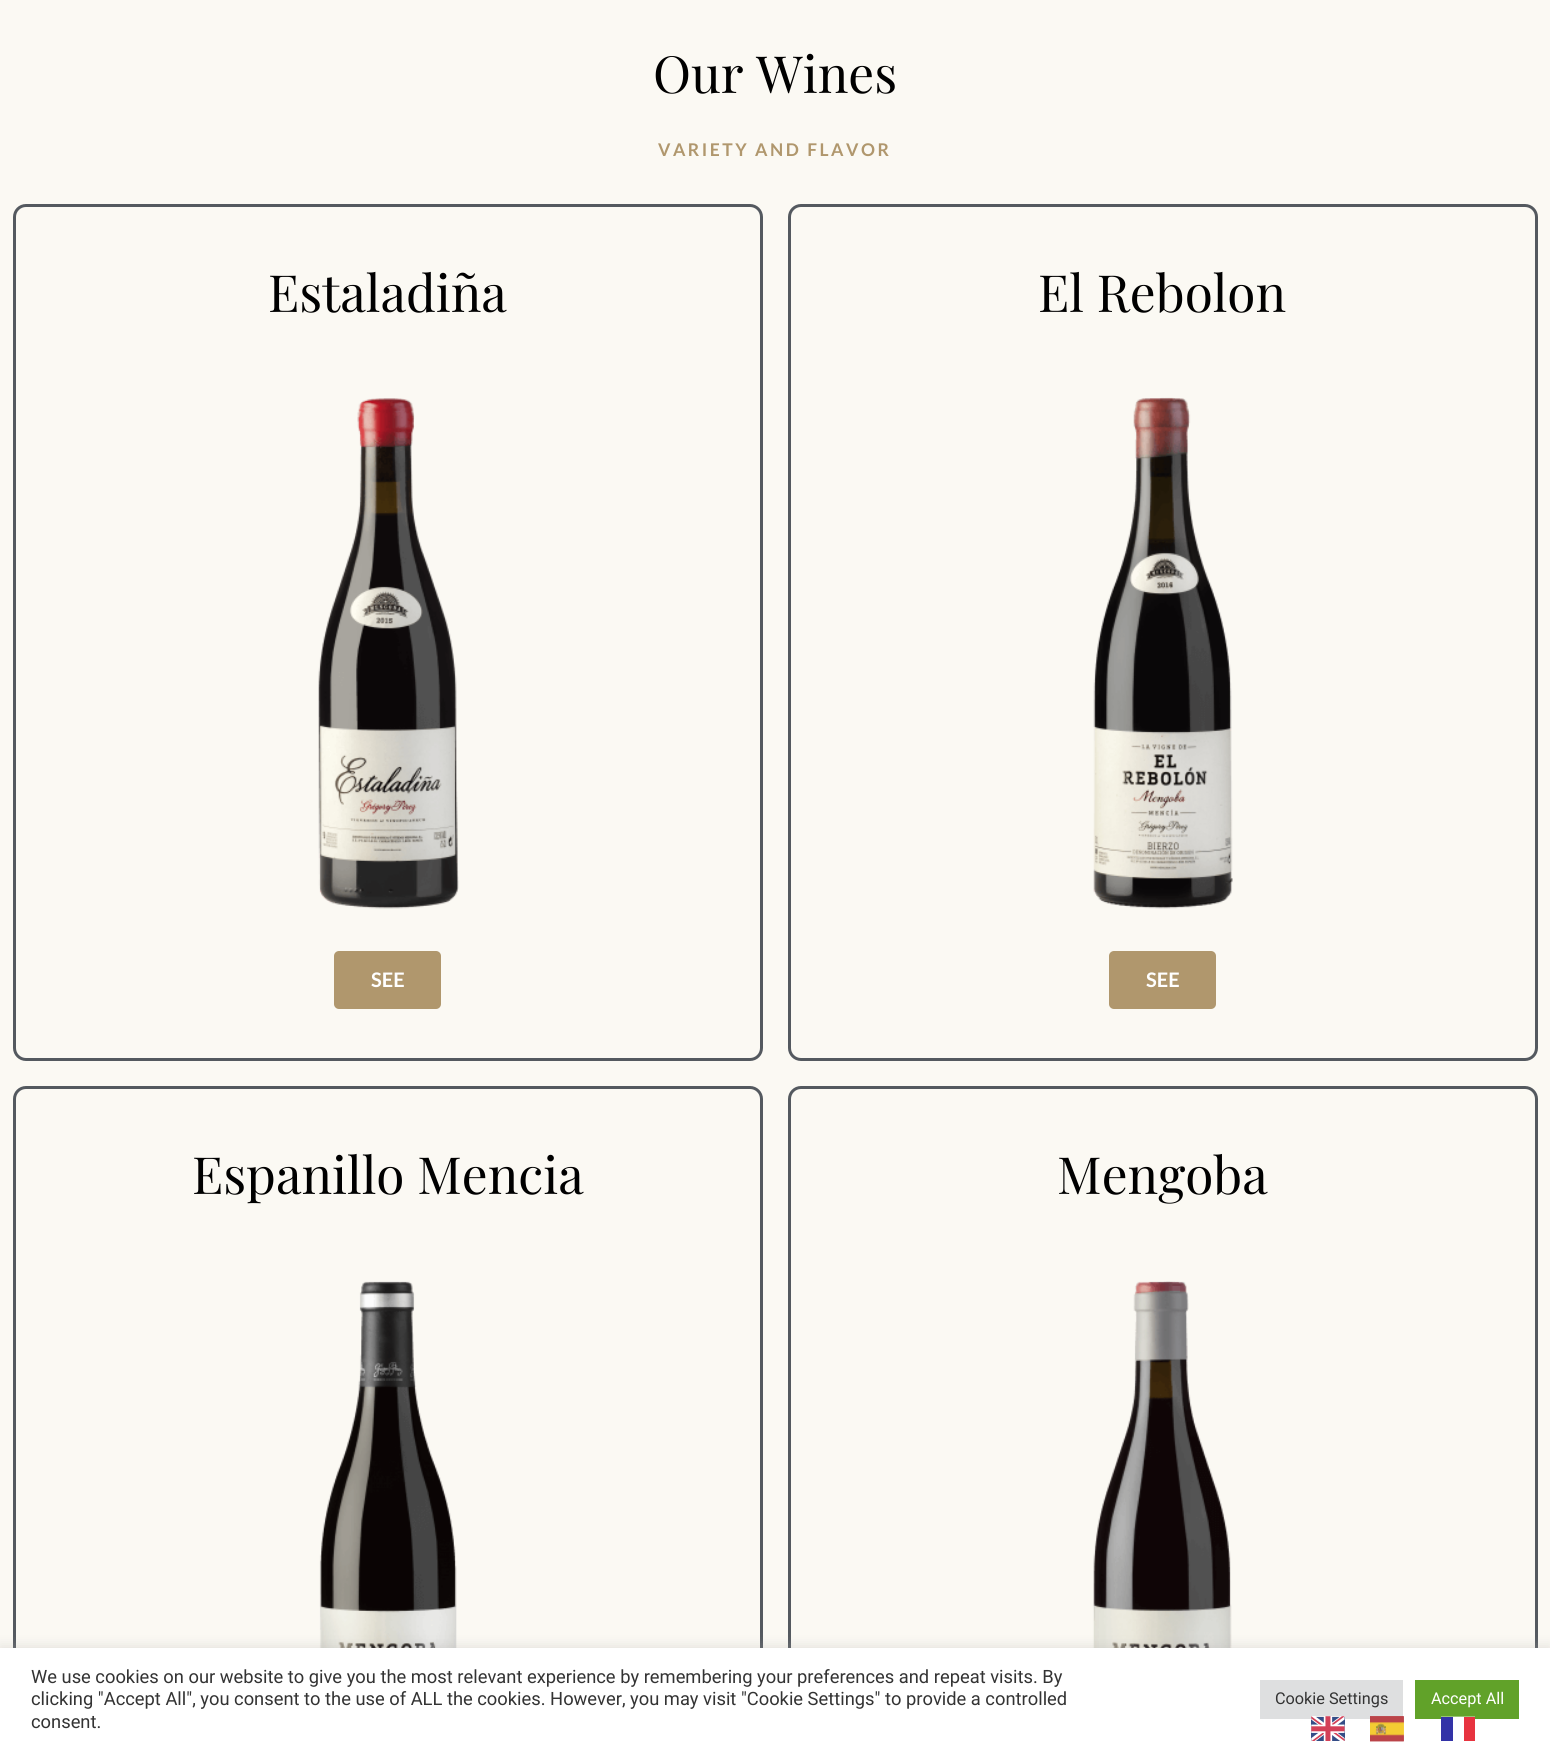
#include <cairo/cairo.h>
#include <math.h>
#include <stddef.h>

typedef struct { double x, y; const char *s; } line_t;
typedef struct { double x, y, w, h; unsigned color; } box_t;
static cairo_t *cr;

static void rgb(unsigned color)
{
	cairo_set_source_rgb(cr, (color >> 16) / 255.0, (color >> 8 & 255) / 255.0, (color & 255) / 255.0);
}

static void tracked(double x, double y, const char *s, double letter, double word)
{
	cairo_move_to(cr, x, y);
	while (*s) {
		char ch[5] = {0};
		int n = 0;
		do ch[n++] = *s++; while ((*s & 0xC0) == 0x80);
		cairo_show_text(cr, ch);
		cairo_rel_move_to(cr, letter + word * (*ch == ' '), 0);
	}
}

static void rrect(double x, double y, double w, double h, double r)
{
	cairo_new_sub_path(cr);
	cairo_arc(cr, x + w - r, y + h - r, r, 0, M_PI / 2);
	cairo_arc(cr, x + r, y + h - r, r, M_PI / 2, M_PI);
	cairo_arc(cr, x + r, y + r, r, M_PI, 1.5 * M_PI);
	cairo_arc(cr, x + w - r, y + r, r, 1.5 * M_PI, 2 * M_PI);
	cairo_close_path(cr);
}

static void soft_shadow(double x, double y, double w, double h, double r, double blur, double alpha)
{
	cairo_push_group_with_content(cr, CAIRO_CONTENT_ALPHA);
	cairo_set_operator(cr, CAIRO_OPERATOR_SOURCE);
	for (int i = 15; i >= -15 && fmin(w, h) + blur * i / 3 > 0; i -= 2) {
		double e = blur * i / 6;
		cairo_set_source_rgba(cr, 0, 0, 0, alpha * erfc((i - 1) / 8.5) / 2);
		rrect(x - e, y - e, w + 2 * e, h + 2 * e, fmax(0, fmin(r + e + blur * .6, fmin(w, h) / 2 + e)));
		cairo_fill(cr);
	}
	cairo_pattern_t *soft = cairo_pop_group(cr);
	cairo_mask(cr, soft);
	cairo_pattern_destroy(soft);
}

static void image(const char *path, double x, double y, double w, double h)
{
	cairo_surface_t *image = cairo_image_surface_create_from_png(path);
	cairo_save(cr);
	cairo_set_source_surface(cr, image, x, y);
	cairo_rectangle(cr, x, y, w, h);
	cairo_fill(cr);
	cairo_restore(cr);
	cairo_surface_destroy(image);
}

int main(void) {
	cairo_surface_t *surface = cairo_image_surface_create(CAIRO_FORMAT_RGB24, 1550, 1750);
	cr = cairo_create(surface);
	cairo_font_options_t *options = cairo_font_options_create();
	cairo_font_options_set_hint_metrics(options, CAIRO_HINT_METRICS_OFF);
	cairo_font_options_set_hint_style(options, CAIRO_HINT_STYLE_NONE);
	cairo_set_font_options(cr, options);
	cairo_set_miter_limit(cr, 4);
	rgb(0xfbf9f3);
	cairo_paint(cr);
	rrect(14.5, 205.5, 747, 854, 11.5);
	rgb(0x54595f);
	cairo_set_line_width(cr, 3);
	cairo_stroke(cr);
	image("img/1.png", 318, 398, 141, 511);
	rgb(0xb0976d);
	rrect(334, 951, 107, 58, 5);
	cairo_fill(cr);
	rrect(789.5, 205.5, 747, 854, 11.5);
	rgb(0x54595f);
	cairo_stroke(cr);
	image("img/2.png", 1093, 397, 140, 512);
	rgb(0xb0976d);
	rrect(1109, 951, 107, 58, 5);
	cairo_fill(cr);
	rrect(14.5, 1087.5, 747, 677, 11.5);
	rgb(0x54595f);
	cairo_stroke(cr);
	image("img/3.png", 319, 1281, 138, 367);
	rrect(789.5, 1087.5, 747, 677, 11.5);
	cairo_stroke(cr);
	image("img/4.png", 1092, 1281, 140, 367);
	rgb(0xacabab);
	soft_shadow(0, 1646, 1550, 103, 0, 6, 0.3);
	{
		static const box_t items[] = {
			{0, 1648, 1550, 102, 0xffffff},
			{1260, 1680, 143, 39, 0xdedfe0},
			{1415, 1680, 104, 39, 0x61a229},
			{1441, 1716, 34, 1, 0x9ac476},
		};
		for (size_t i = 0; i < sizeof items / sizeof *items; i++) {
			rgb(items[i].color);
			cairo_rectangle(cr, items[i].x, items[i].y, items[i].w, items[i].h);
			cairo_fill(cr);
		}
	}
	image("img/5.png", 1311, 1716, 34, 25);
	image("img/6.png", 1370, 1716, 34, 26);
	image("img/7.png", 1311, 1716, 34, 1);
	image("img/8.png", 1370, 1716, 34, 26);
	{
		static const box_t items[] = {
			{1453, 1717, 11, 2, 0xffffff},
			{1441, 1717, 12, 24, 0x3333a7},
			{1464, 1717, 11, 24, 0xe7333f},
		};
		for (size_t i = 0; i < sizeof items / sizeof *items; i++) {
			rgb(items[i].color);
			cairo_rectangle(cr, items[i].x, items[i].y, items[i].w, items[i].h);
			cairo_fill(cr);
		}
	}
	cairo_select_font_face(cr, "Playfair Display", CAIRO_FONT_SLANT_NORMAL, CAIRO_FONT_WEIGHT_NORMAL);
	cairo_set_font_size(cr, 51.25);
	rgb(0x000000);
	cairo_move_to(cr, 653, 93);
	cairo_show_text(cr, "Our Wines");
	cairo_select_font_face(cr, "Lato", CAIRO_FONT_SLANT_NORMAL, CAIRO_FONT_WEIGHT_BOLD);
	cairo_set_font_size(cr, 17.5);
	rgb(0xb0976d);
	tracked(658, 156, "VARIETY AND FLAVOR", 2.5, 0);
	cairo_select_font_face(cr, "Playfair Display", CAIRO_FONT_SLANT_NORMAL, CAIRO_FONT_WEIGHT_NORMAL);
	cairo_set_font_size(cr, 51.25);
	rgb(0x000000);
	cairo_move_to(cr, 268, 312);
	cairo_show_text(cr, "Estaladiña");
	cairo_select_font_face(cr, "Lato", CAIRO_FONT_SLANT_NORMAL, CAIRO_FONT_WEIGHT_BOLD);
	cairo_set_font_size(cr, 20);
	rgb(0xffffff);
	cairo_move_to(cr, 371, 987);
	cairo_show_text(cr, "SEE");
	cairo_select_font_face(cr, "Playfair Display", CAIRO_FONT_SLANT_NORMAL, CAIRO_FONT_WEIGHT_NORMAL);
	cairo_set_font_size(cr, 51.25);
	rgb(0x000000);
	cairo_move_to(cr, 1038, 312);
	cairo_show_text(cr, "El Rebolon");
	cairo_select_font_face(cr, "Lato", CAIRO_FONT_SLANT_NORMAL, CAIRO_FONT_WEIGHT_BOLD);
	cairo_set_font_size(cr, 20);
	rgb(0xffffff);
	cairo_move_to(cr, 1146, 987);
	cairo_show_text(cr, "SEE");
	cairo_select_font_face(cr, "Playfair Display", CAIRO_FONT_SLANT_NORMAL, CAIRO_FONT_WEIGHT_NORMAL);
	cairo_set_font_size(cr, 51.25);
	rgb(0x000000);
	cairo_move_to(cr, 192, 1194);
	cairo_show_text(cr, "Espanillo Mencia");
	cairo_move_to(cr, 1057, 1194);
	cairo_show_text(cr, "Mengoba");
	cairo_select_font_face(cr, "Roboto", CAIRO_FONT_SLANT_NORMAL, CAIRO_FONT_WEIGHT_NORMAL);
	cairo_set_font_size(cr, 18.33);
	rgb(0x333333);
	{
		static const line_t items[] = {
			{31, 1683, "We use cookies on our website to give you the most relevant experience by remembering your preferences and repeat visits. By"},
			{31, 1705, "clicking \"Accept All\", you consent to the use of ALL the cookies. However, you may visit \"Cookie Settings\" to provide a controlled"},
			{31, 1728, "consent."},
		};
		for (size_t i = 0; i < sizeof items / sizeof *items; i++) {
			cairo_move_to(cr, items[i].x, items[i].y);
			cairo_show_text(cr, items[i].s);
		}
	}
	cairo_set_font_size(cr, 16.25);
	cairo_move_to(cr, 1275, 1704);
	cairo_show_text(cr, "Cookie Settings");
	rgb(0xffffff);
	cairo_move_to(cr, 1431, 1704);
	cairo_show_text(cr, "Accept All");
	cairo_surface_write_to_png(surface, "page.png");
	cairo_font_options_destroy(options);
	cairo_destroy(cr);
	cairo_surface_destroy(surface);
	return 0;
}
